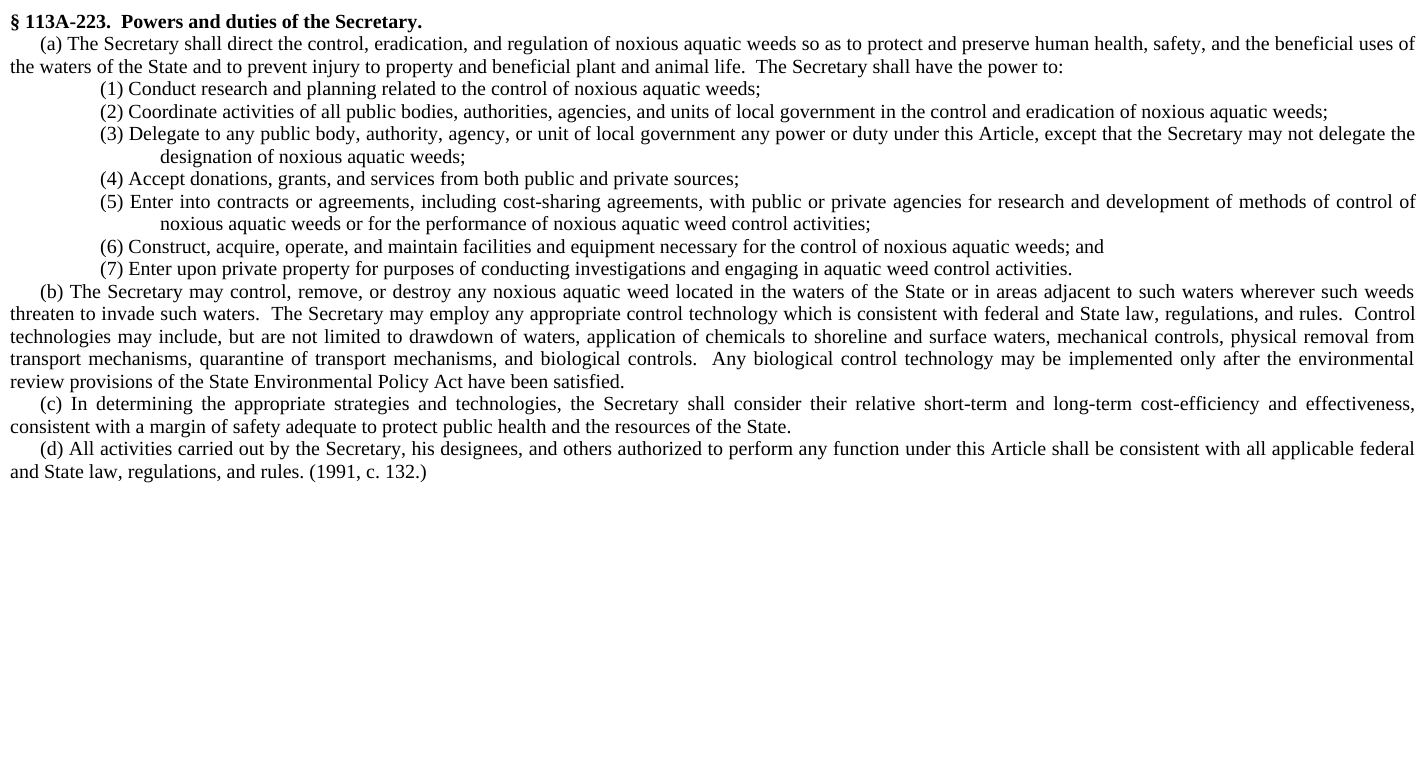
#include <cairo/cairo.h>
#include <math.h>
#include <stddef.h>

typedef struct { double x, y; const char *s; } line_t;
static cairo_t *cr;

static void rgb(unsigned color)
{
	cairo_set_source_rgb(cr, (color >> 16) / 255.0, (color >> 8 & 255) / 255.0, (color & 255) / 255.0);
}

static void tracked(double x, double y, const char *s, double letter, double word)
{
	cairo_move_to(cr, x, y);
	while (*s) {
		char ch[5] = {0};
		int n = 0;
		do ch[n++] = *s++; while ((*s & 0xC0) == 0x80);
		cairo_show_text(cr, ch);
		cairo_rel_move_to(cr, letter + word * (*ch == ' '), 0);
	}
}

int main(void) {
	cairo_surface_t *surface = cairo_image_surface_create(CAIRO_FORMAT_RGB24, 1425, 782);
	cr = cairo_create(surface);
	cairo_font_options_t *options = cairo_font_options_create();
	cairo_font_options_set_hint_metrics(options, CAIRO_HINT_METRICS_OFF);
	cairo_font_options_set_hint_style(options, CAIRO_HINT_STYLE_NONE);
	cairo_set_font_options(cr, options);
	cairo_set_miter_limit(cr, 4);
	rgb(0xffffff);
	cairo_paint(cr);
	cairo_select_font_face(cr, "Liberation Serif", CAIRO_FONT_SLANT_NORMAL, CAIRO_FONT_WEIGHT_BOLD);
	cairo_set_font_size(cr, 20);
	rgb(0x000000);
	cairo_move_to(cr, 10, 28);
	cairo_show_text(cr, "§ 113A-223.  Powers and duties of the Secretary.");
	cairo_select_font_face(cr, "Liberation Serif", CAIRO_FONT_SLANT_NORMAL, CAIRO_FONT_WEIGHT_NORMAL);
	tracked(40, 50, "(a) The Secretary shall direct the control, eradication, and regulation of noxious aquatic weeds so as to protect and preserve human health, safety, and the beneficial uses of", 0, 0.15);
	{
		static const line_t items[] = {
			{10, 73, "the waters of the State and to prevent injury to property and beneficial plant and animal life.  The Secretary shall have the power to:"},
			{100, 95, "(1) Conduct research and planning related to the control of noxious aquatic weeds;"},
			{100, 118, "(2) Coordinate activities of all public bodies, authorities, agencies, and units of local government in the control and eradication of noxious aquatic weeds;"},
		};
		for (size_t i = 0; i < sizeof items / sizeof *items; i++) {
			cairo_move_to(cr, items[i].x, items[i].y);
			cairo_show_text(cr, items[i].s);
		}
	}
	tracked(100, 140, "(3) Delegate to any public body, authority, agency, or unit of local government any power or duty under this Article, except that the Secretary may not delegate the", 0, 0.35);
	cairo_move_to(cr, 160, 163);
	cairo_show_text(cr, "designation of noxious aquatic weeds;");
	cairo_move_to(cr, 100, 185);
	cairo_show_text(cr, "(4) Accept donations, grants, and services from both public and private sources;");
	tracked(100, 208, "(5) Enter into contracts or agreements, including cost-sharing agreements, with public or private agencies for research and development of methods of control of", 0, 1.4);
	{
		static const line_t items[] = {
			{160, 230, "noxious aquatic weeds or for the performance of noxious aquatic weed control activities;"},
			{100, 253, "(6) Construct, acquire, operate, and maintain facilities and equipment necessary for the control of noxious aquatic weeds; and"},
			{100, 275, "(7) Enter upon private property for purposes of conducting investigations and engaging in aquatic weed control activities."},
		};
		for (size_t i = 0; i < sizeof items / sizeof *items; i++) {
			cairo_move_to(cr, items[i].x, items[i].y);
			cairo_show_text(cr, items[i].s);
		}
	}
	tracked(40, 298, "(b) The Secretary may control, remove, or destroy any noxious aquatic weed located in the waters of the State or in areas adjacent to such waters wherever such weeds", 0, 1.4);
	tracked(10, 320, "threaten to invade such waters.  The Secretary may employ any appropriate control technology which is consistent with federal and State law, regulations, and rules.  Control", 0, 0.7);
	tracked(10, 343, "technologies may include, but are not limited to drawdown of waters, application of chemicals to shoreline and surface waters, mechanical controls, physical removal from", 0, 1.5);
	tracked(10, 365, "transport mechanisms, quarantine of transport mechanisms, and biological controls.  Any biological control technology may be implemented only after the environmental", 0, 2.25);
	cairo_move_to(cr, 10, 388);
	cairo_show_text(cr, "review provisions of the State Environmental Policy Act have been satisfied.");
	tracked(40, 410, "(c) In determining the appropriate strategies and technologies, the Secretary shall consider their relative short-term and long-term cost-efficiency and effectiveness,", 0, 3.6);
	cairo_move_to(cr, 10, 433);
	cairo_show_text(cr, "consistent with a margin of safety adequate to protect public health and the resources of the State.");
	tracked(40, 455, "(d) All activities carried out by the Secretary, his designees, and others authorized to perform any function under this Article shall be consistent with all applicable federal", 0, 0.55);
	cairo_move_to(cr, 10, 478);
	cairo_show_text(cr, "and State law, regulations, and rules. (1991, c. 132.)");
	cairo_surface_write_to_png(surface, "page.png");
	cairo_font_options_destroy(options);
	cairo_destroy(cr);
	cairo_surface_destroy(surface);
	return 0;
}
